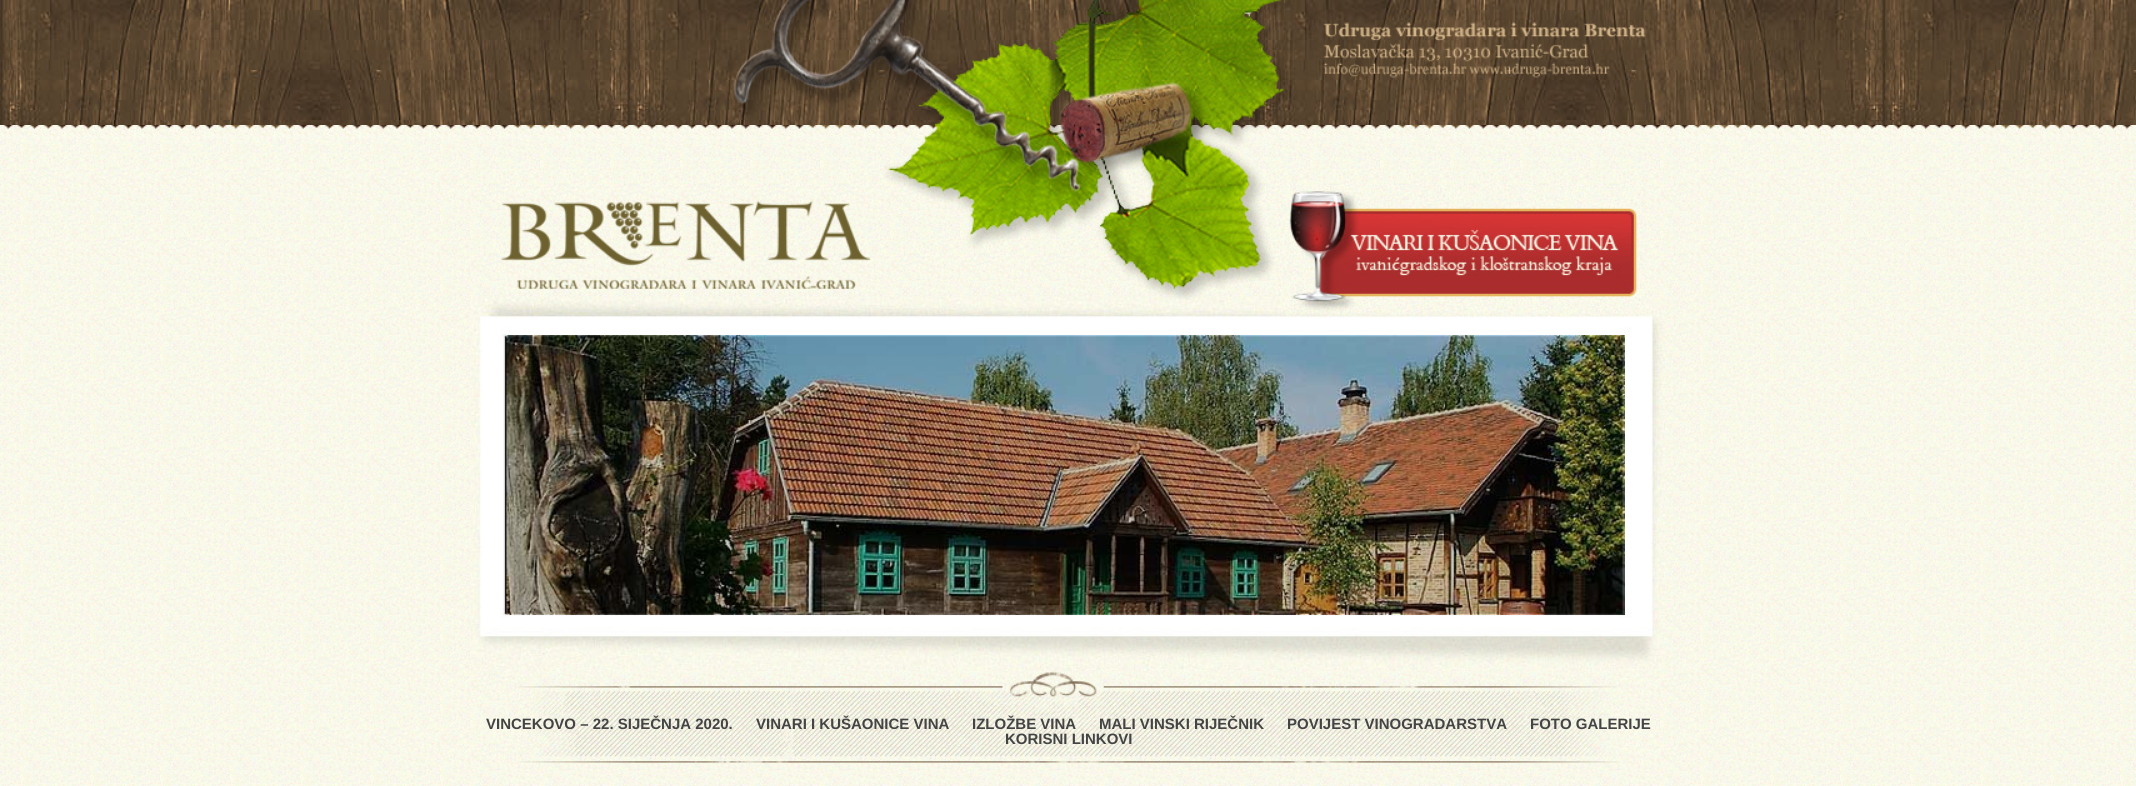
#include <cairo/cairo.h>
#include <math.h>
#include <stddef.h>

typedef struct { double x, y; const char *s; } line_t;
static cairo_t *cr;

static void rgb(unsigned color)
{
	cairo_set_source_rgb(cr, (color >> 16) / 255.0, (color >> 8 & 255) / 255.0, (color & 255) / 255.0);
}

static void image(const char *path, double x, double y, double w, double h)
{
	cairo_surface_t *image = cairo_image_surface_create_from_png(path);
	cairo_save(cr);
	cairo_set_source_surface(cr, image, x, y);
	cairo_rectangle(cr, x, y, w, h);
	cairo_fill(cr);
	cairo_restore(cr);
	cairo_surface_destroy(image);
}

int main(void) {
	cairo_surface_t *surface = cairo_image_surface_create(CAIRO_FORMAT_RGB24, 2136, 786);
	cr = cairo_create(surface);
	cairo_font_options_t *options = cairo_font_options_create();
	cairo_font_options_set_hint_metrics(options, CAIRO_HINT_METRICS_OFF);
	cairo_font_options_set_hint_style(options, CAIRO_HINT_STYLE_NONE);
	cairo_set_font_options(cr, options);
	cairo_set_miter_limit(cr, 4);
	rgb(0xffffff);
	cairo_paint(cr);
	image("img/1.png", 0, 0, 2136, 125);
	image("img/2.png", 0, 141, 2136, 645);
	image("img/3.png", 0, 125, 2136, 17);
	image("img/4.png", 450, 141, 1238, 645);
	image("img/8.png", 471, 297, 1194, 376);
	image("img/5.png", 733, 0, 913, 300);
	image("img/6.png", 501, 201, 370, 88);
	image("img/7.png", 1281, 185, 364, 132);
	image("img/9.png", 506, 335, 1119, 280);
	image("img/10.png", 510, 671, 1115, 92);
	cairo_select_font_face(cr, "Liberation Sans", CAIRO_FONT_SLANT_NORMAL, CAIRO_FONT_WEIGHT_BOLD);
	cairo_set_font_size(cr, 15);
	rgb(0x444444);
	{
		static const line_t items[] = {
			{486, 729, "VINCEKOVO – 22. SIJEČNJA 2020."},
			{756, 729, "VINARI I KUŠAONICE VINA"},
			{972, 729, "IZLOŽBE VINA"},
			{1099, 729, "MALI VINSKI RIJEČNIK"},
			{1287, 729, "POVIJEST VINOGRADARSTVA"},
			{1530, 729, "FOTO GALERIJE"},
			{1005, 744, "KORISNI LINKOVI"},
		};
		for (size_t i = 0; i < sizeof items / sizeof *items; i++) {
			cairo_move_to(cr, items[i].x, items[i].y);
			cairo_show_text(cr, items[i].s);
		}
	}
	cairo_surface_write_to_png(surface, "page.png");
	cairo_font_options_destroy(options);
	cairo_destroy(cr);
	cairo_surface_destroy(surface);
	return 0;
}
